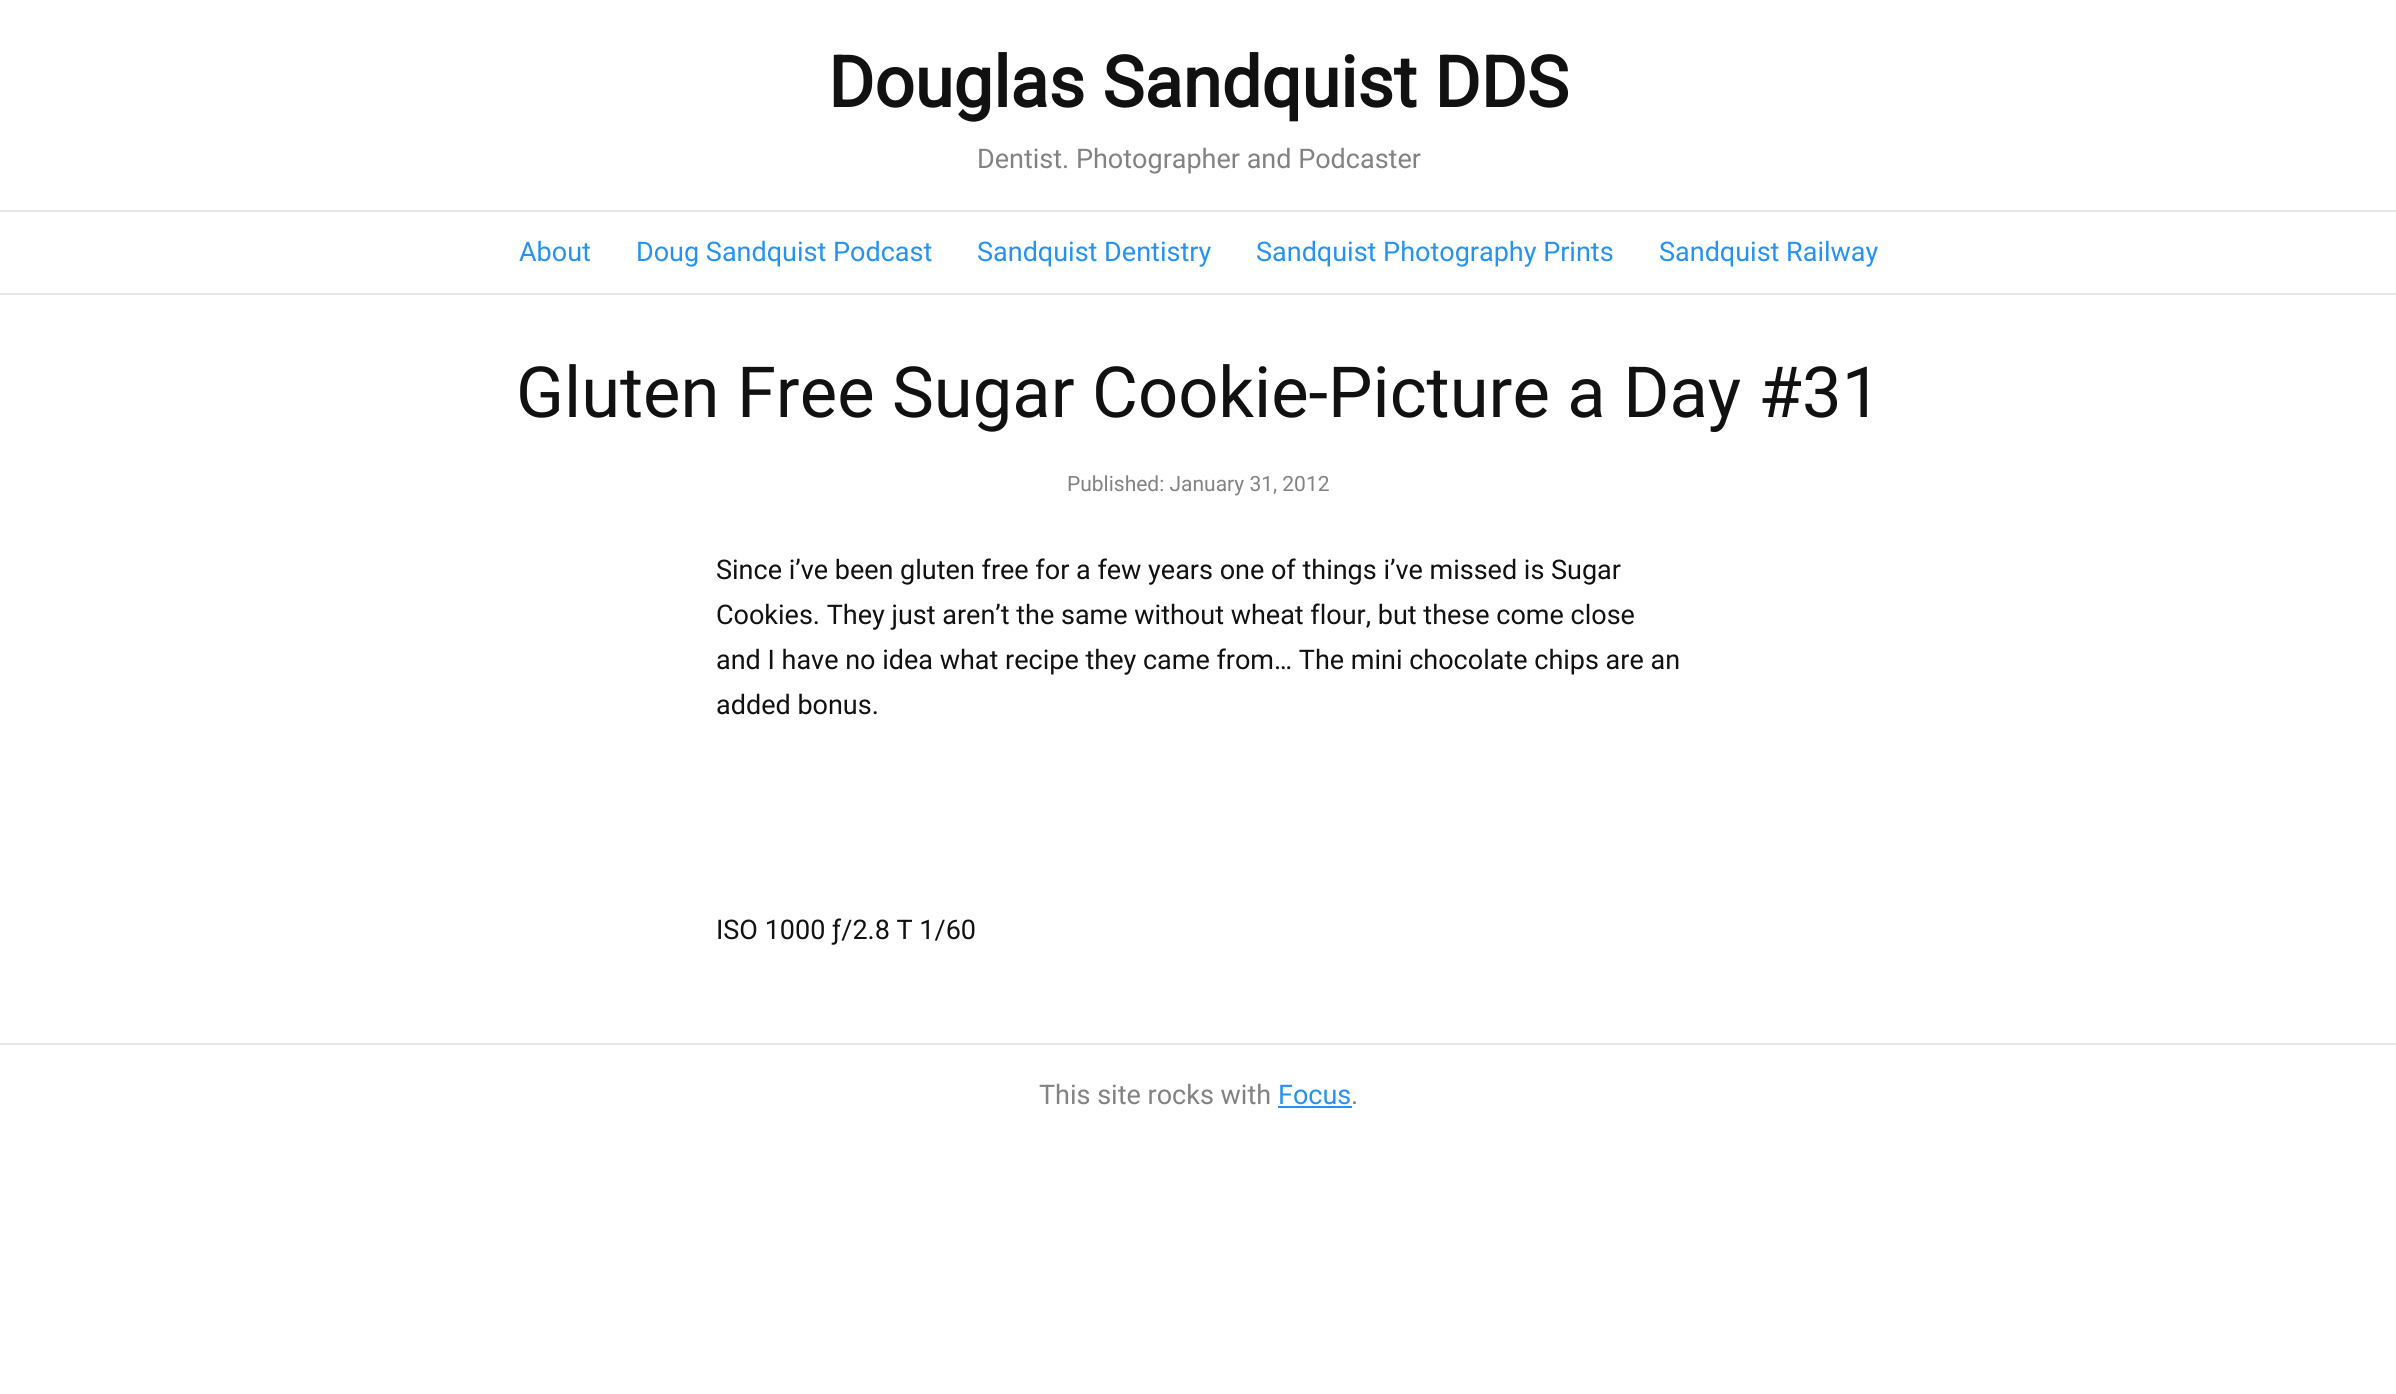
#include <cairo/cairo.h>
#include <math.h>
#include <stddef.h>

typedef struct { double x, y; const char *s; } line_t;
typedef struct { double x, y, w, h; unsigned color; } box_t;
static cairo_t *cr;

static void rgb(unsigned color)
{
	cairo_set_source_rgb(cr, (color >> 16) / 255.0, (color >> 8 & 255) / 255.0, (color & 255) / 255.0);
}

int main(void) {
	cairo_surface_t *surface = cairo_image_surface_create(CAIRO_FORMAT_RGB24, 2396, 1394);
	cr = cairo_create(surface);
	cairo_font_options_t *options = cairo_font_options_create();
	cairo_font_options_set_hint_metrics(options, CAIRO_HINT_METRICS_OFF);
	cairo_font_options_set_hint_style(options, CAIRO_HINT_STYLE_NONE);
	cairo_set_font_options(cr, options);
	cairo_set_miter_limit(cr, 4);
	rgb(0xffffff);
	cairo_paint(cr);
	{
		static const box_t items[] = {
			{0, 210, 2396, 2, 0xe6e6e6},
			{0, 293, 2396, 2, 0xe6e6e6},
			{0, 1043, 2396, 2, 0xe6e6e6},
			{1278, 1106, 74, 2, 0x2692f0},
		};
		for (size_t i = 0; i < sizeof items / sizeof *items; i++) {
			rgb(items[i].color);
			cairo_rectangle(cr, items[i].x, items[i].y, items[i].w, items[i].h);
			cairo_fill(cr);
		}
	}
	cairo_select_font_face(cr, "Roboto", CAIRO_FONT_SLANT_NORMAL, CAIRO_FONT_WEIGHT_BOLD);
	cairo_set_font_size(cr, 70.5);
	rgb(0x111111);
	cairo_move_to(cr, 828, 107);
	cairo_show_text(cr, "Douglas Sandquist DDS");
	cairo_select_font_face(cr, "Roboto", CAIRO_FONT_SLANT_NORMAL, CAIRO_FONT_WEIGHT_NORMAL);
	cairo_set_font_size(cr, 27);
	rgb(0x828282);
	cairo_move_to(cr, 977, 168);
	cairo_show_text(cr, "Dentist. Photographer and Podcaster");
	rgb(0x2692f0);
	{
		static const line_t items[] = {
			{519, 261, "About"},
			{636, 261, "Doug Sandquist Podcast"},
			{977, 261, "Sandquist Dentistry"},
			{1256, 261, "Sandquist Photography Prints"},
			{1659, 261, "Sandquist Railway"},
		};
		for (size_t i = 0; i < sizeof items / sizeof *items; i++) {
			cairo_move_to(cr, items[i].x, items[i].y);
			cairo_show_text(cr, items[i].s);
		}
	}
	cairo_set_font_size(cr, 70.5);
	rgb(0x111111);
	cairo_move_to(cr, 516, 417);
	cairo_show_text(cr, "Gluten Free Sugar Cookie-Picture a Day #31");
	cairo_set_font_size(cr, 21);
	rgb(0x828282);
	cairo_move_to(cr, 1067, 491);
	cairo_show_text(cr, "Published: January 31, 2012");
	cairo_set_font_size(cr, 27);
	rgb(0x111111);
	{
		static const line_t items[] = {
			{716, 579, "Since i’ve been gluten free for a few years one of things i’ve missed is Sugar"},
			{716, 624, "Cookies. They just aren’t the same without wheat flour, but these come close"},
			{716, 669, "and I have no idea what recipe they came from… The mini chocolate chips are an"},
			{716, 714, "added bonus."},
			{716, 939, "ISO 1000 ƒ/2.8 T 1/60"},
		};
		for (size_t i = 0; i < sizeof items / sizeof *items; i++) {
			cairo_move_to(cr, items[i].x, items[i].y);
			cairo_show_text(cr, items[i].s);
		}
	}
	rgb(0x828282);
	cairo_move_to(cr, 1039, 1104);
	cairo_show_text(cr, "This site rocks with");
	rgb(0x2692f0);
	cairo_move_to(cr, 1278, 1104);
	cairo_show_text(cr, "Focus");
	rgb(0x828282);
	cairo_move_to(cr, 1351, 1104);
	cairo_show_text(cr, ".");
	cairo_surface_write_to_png(surface, "page.png");
	cairo_font_options_destroy(options);
	cairo_destroy(cr);
	cairo_surface_destroy(surface);
	return 0;
}
